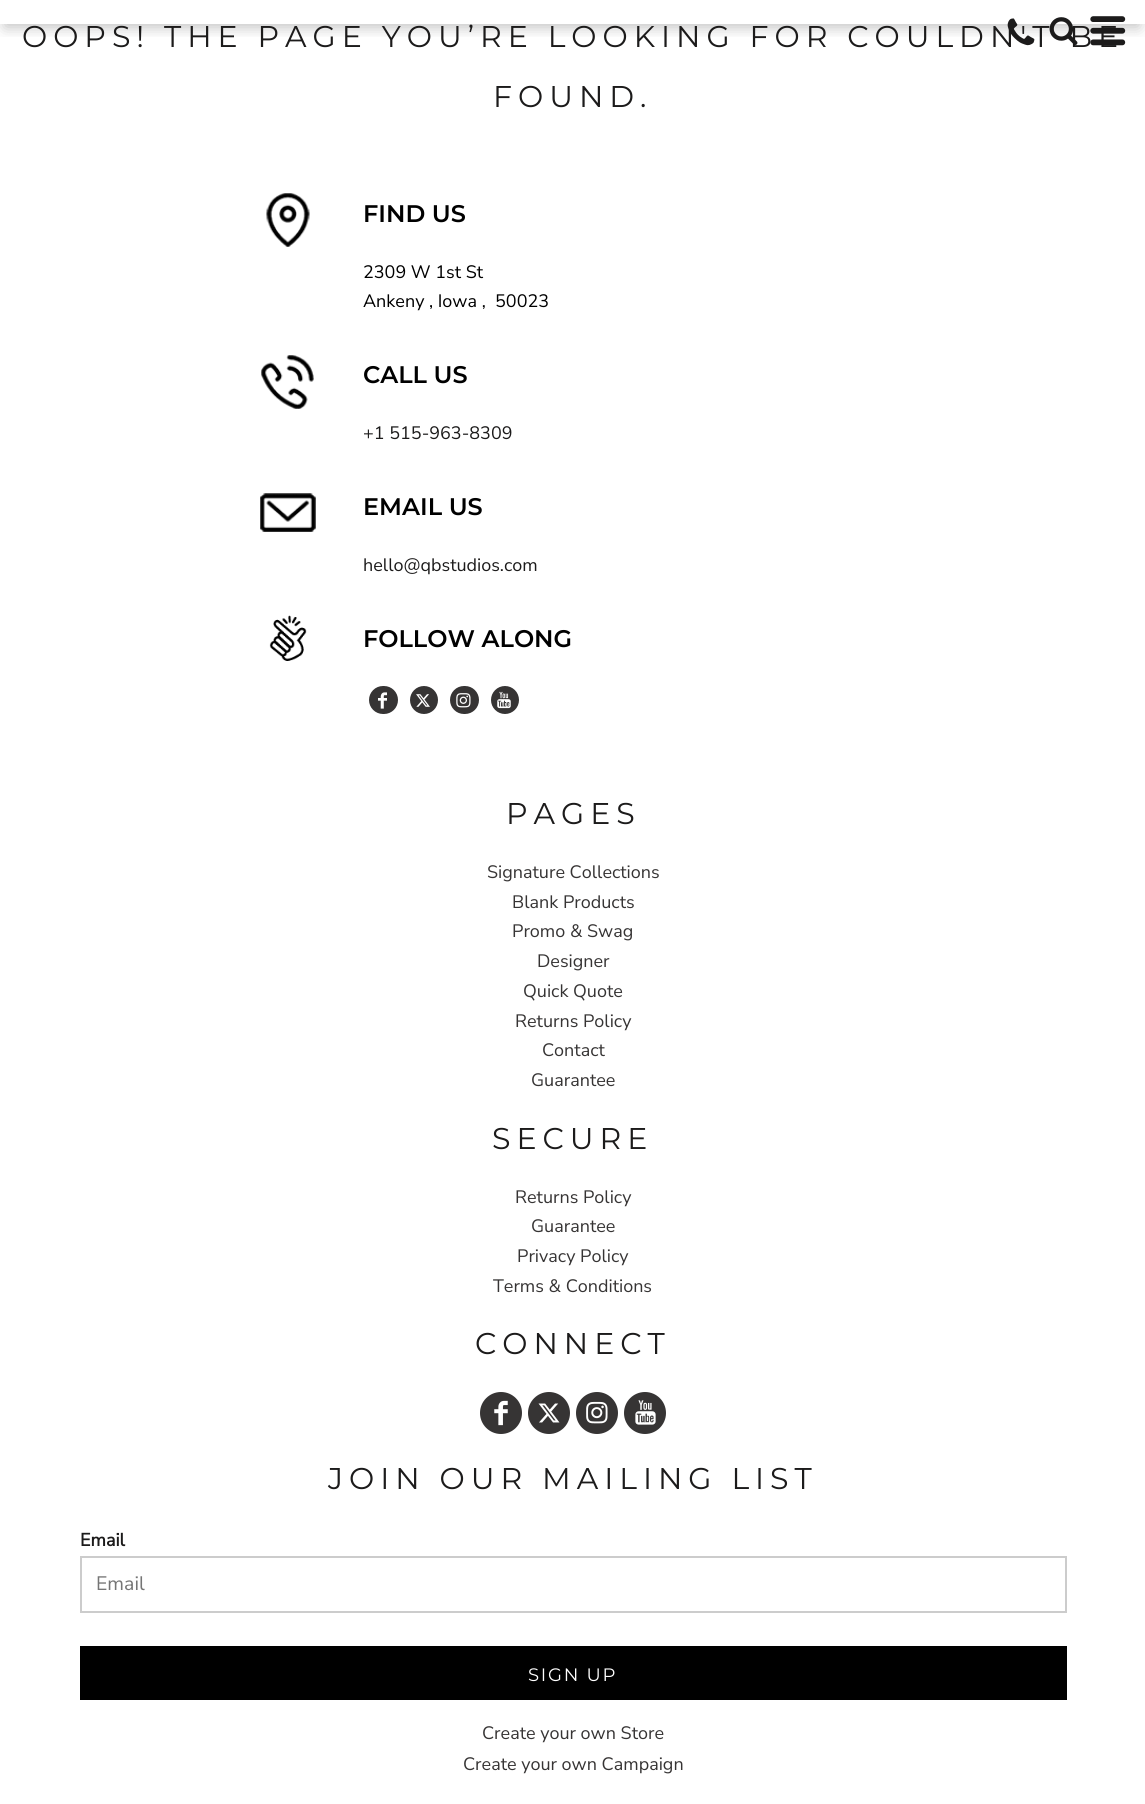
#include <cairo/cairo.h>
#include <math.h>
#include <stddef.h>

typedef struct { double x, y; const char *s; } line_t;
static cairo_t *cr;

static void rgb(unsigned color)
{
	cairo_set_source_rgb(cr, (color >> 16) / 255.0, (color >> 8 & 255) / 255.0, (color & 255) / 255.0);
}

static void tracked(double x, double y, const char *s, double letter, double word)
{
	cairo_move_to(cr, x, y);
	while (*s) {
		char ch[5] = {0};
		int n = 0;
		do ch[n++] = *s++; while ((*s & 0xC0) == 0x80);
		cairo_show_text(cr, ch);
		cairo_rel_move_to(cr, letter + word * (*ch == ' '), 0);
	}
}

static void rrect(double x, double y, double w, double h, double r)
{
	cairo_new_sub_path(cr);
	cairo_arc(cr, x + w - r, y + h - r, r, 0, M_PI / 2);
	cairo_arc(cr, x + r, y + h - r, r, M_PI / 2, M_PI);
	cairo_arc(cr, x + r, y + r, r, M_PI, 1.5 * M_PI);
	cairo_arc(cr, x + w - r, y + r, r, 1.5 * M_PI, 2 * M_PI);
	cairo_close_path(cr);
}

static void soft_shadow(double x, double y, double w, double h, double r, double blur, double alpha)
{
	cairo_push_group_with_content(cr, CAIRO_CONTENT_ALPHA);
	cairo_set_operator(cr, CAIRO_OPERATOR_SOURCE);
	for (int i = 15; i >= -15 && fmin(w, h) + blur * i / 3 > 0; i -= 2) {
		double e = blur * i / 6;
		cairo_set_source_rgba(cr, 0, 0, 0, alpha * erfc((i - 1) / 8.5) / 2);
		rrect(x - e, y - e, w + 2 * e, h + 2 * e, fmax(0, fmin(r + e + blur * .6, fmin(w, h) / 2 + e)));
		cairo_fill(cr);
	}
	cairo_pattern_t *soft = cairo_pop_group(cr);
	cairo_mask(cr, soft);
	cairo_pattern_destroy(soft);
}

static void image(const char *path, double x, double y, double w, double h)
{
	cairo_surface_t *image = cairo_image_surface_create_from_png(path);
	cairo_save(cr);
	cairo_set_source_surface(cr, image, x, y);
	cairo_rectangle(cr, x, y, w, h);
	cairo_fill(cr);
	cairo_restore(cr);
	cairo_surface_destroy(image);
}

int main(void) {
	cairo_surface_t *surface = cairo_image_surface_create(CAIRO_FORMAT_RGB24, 1145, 1804);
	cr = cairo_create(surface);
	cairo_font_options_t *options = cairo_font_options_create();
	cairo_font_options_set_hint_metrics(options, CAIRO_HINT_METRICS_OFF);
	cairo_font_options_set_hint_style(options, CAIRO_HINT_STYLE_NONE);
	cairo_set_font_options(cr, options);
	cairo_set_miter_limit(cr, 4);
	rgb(0xffffff);
	cairo_paint(cr);
	cairo_save(cr);
	cairo_rectangle(cr, 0, 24, 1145, 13);
	cairo_clip(cr);
	rgb(0x000000);
	soft_shadow(5, 15, 1134, 12, 0, 7.5, 0.25);
	cairo_restore(cr);
	image("img/3.png", 266, 193, 44, 54);
	image("img/4.png", 261, 355, 53, 54);
	image("img/5.png", 260, 493, 56, 39);
	image("img/6.png", 269, 615, 38, 46);
	rgb(0x363434);
	rrect(369, 686, 29, 28, 14);
	cairo_fill(cr);
	image("img/7.png", 378, 692, 9, 17);
	cairo_arc(cr, 424, 700, 14, 0, 2 * M_PI);
	cairo_fill(cr);
	image("img/8.png", 416, 694, 14, 13);
	rrect(450, 686, 29, 28, 14);
	cairo_fill(cr);
	image("img/9.png", 456, 693, 15, 15);
	cairo_arc(cr, 505, 700, 14, 0, 2 * M_PI);
	cairo_fill(cr);
	cairo_arc(cr, 501, 1413, 21, 0, 2 * M_PI);
	cairo_fill(cr);
	image("img/10.png", 494, 1400, 14, 26);
	cairo_arc(cr, 549, 1413, 21, 0, 2 * M_PI);
	cairo_fill(cr);
	image("img/11.png", 538, 1403, 22, 20);
	cairo_arc(cr, 597, 1413, 21, 0, 2 * M_PI);
	cairo_fill(cr);
	image("img/12.png", 586, 1401, 22, 23);
	cairo_arc(cr, 645, 1413, 21, 0, 2 * M_PI);
	cairo_fill(cr);
	cairo_rectangle(cr, 81, 1557, 985, 55);
	rgb(0xcccccc);
	cairo_stroke(cr);
	rgb(0x000000);
	cairo_rectangle(cr, 80, 1646, 987, 54);
	cairo_fill(cr);
	cairo_select_font_face(cr, "Montserrat", CAIRO_FONT_SLANT_NORMAL, CAIRO_FONT_WEIGHT_NORMAL);
	cairo_set_font_size(cr, 30);
	rgb(0x1c1b1b);
	tracked(22, 47, "OOPS! THE PAGE YOU’RE LOOKING FOR COULDN'T BE", 6, 0);
	image("img/2.png", 1090, 16, 36, 30);
	image("img/1.png", 1049, 17, 29, 28);
	cairo_select_font_face(cr, "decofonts", CAIRO_FONT_SLANT_NORMAL, CAIRO_FONT_WEIGHT_NORMAL);
	cairo_set_font_size(cr, 34);
	cairo_move_to(cr, 1004, 50);
	cairo_show_text(cr, ";");
	cairo_select_font_face(cr, "Montserrat", CAIRO_FONT_SLANT_NORMAL, CAIRO_FONT_WEIGHT_NORMAL);
	cairo_set_font_size(cr, 30);
	tracked(493, 107, "FOUND.", 6, 0);
	cairo_select_font_face(cr, "Montserrat SemiBold", CAIRO_FONT_SLANT_NORMAL, CAIRO_FONT_WEIGHT_NORMAL);
	cairo_set_font_size(cr, 24);
	rgb(0x000000);
	cairo_move_to(cr, 363, 222);
	cairo_show_text(cr, "FIND US");
	cairo_select_font_face(cr, "Nunito Sans ExtraLight", CAIRO_FONT_SLANT_NORMAL, CAIRO_FONT_WEIGHT_NORMAL);
	cairo_set_font_size(cr, 18);
	cairo_move_to(cr, 363, 278);
	cairo_show_text(cr, "2309 W 1st St");
	cairo_move_to(cr, 363, 307);
	cairo_show_text(cr, "Ankeny , Iowa ,  50023");
	cairo_select_font_face(cr, "Montserrat SemiBold", CAIRO_FONT_SLANT_NORMAL, CAIRO_FONT_WEIGHT_NORMAL);
	cairo_set_font_size(cr, 24);
	cairo_move_to(cr, 363, 383);
	cairo_show_text(cr, "CALL US");
	cairo_select_font_face(cr, "Nunito Sans ExtraLight", CAIRO_FONT_SLANT_NORMAL, CAIRO_FONT_WEIGHT_NORMAL);
	cairo_set_font_size(cr, 18);
	rgb(0x1c1b1b);
	cairo_move_to(cr, 363, 439);
	cairo_show_text(cr, "+1 515-963-8309");
	cairo_select_font_face(cr, "Montserrat SemiBold", CAIRO_FONT_SLANT_NORMAL, CAIRO_FONT_WEIGHT_NORMAL);
	cairo_set_font_size(cr, 24);
	rgb(0x000000);
	cairo_move_to(cr, 363, 515);
	cairo_show_text(cr, "EMAIL US");
	cairo_select_font_face(cr, "Nunito Sans ExtraLight", CAIRO_FONT_SLANT_NORMAL, CAIRO_FONT_WEIGHT_NORMAL);
	cairo_set_font_size(cr, 18);
	rgb(0x1c1b1b);
	cairo_move_to(cr, 363, 571);
	cairo_show_text(cr, "hello@qbstudios.com");
	cairo_select_font_face(cr, "Montserrat SemiBold", CAIRO_FONT_SLANT_NORMAL, CAIRO_FONT_WEIGHT_NORMAL);
	cairo_set_font_size(cr, 24);
	rgb(0x000000);
	cairo_move_to(cr, 363, 647);
	cairo_show_text(cr, "FOLLOW ALONG");
	cairo_select_font_face(cr, "decofonts", CAIRO_FONT_SLANT_NORMAL, CAIRO_FONT_WEIGHT_NORMAL);
	cairo_set_font_size(cr, 18);
	rgb(0xffffff);
	cairo_move_to(cr, 495, 709);
	cairo_show_text(cr, "1");
	cairo_select_font_face(cr, "Montserrat", CAIRO_FONT_SLANT_NORMAL, CAIRO_FONT_WEIGHT_NORMAL);
	cairo_set_font_size(cr, 30);
	rgb(0x1c1b1b);
	tracked(506, 824, "PAGES", 6, 0);
	cairo_select_font_face(cr, "Nunito Sans ExtraLight", CAIRO_FONT_SLANT_NORMAL, CAIRO_FONT_WEIGHT_NORMAL);
	cairo_set_font_size(cr, 18);
	rgb(0x363434);
	{
		static const line_t items[] = {
			{487, 878, "Signature Collections"},
			{512, 908, "Blank Products"},
			{512, 937, "Promo & Swag"},
			{537, 967, "Designer"},
			{523, 997, "Quick Quote"},
			{515, 1027, "Returns Policy"},
			{542, 1056, "Contact"},
			{531, 1086, "Guarantee"},
		};
		for (size_t i = 0; i < sizeof items / sizeof *items; i++) {
			cairo_move_to(cr, items[i].x, items[i].y);
			cairo_show_text(cr, items[i].s);
		}
	}
	cairo_select_font_face(cr, "Montserrat", CAIRO_FONT_SLANT_NORMAL, CAIRO_FONT_WEIGHT_NORMAL);
	cairo_set_font_size(cr, 30);
	rgb(0x1c1b1b);
	tracked(492, 1149, "SECURE", 6, 0);
	cairo_select_font_face(cr, "Nunito Sans ExtraLight", CAIRO_FONT_SLANT_NORMAL, CAIRO_FONT_WEIGHT_NORMAL);
	cairo_set_font_size(cr, 18);
	rgb(0x363434);
	{
		static const line_t items[] = {
			{515, 1203, "Returns Policy"},
			{531, 1232, "Guarantee"},
			{517, 1262, "Privacy Policy"},
			{493, 1292, "Terms & Conditions"},
		};
		for (size_t i = 0; i < sizeof items / sizeof *items; i++) {
			cairo_move_to(cr, items[i].x, items[i].y);
			cairo_show_text(cr, items[i].s);
		}
	}
	cairo_select_font_face(cr, "Montserrat", CAIRO_FONT_SLANT_NORMAL, CAIRO_FONT_WEIGHT_NORMAL);
	cairo_set_font_size(cr, 30);
	rgb(0x1c1b1b);
	tracked(475, 1354, "CONNECT", 6, 0);
	cairo_select_font_face(cr, "decofonts", CAIRO_FONT_SLANT_NORMAL, CAIRO_FONT_WEIGHT_NORMAL);
	cairo_set_font_size(cr, 27);
	rgb(0xffffff);
	cairo_move_to(cr, 632, 1426);
	cairo_show_text(cr, "1");
	cairo_select_font_face(cr, "Montserrat", CAIRO_FONT_SLANT_NORMAL, CAIRO_FONT_WEIGHT_NORMAL);
	cairo_set_font_size(cr, 30);
	rgb(0x1c1b1b);
	tracked(328, 1489, "JOIN OUR MAILING LIST", 6, 0);
	cairo_select_font_face(cr, "Nunito Sans", CAIRO_FONT_SLANT_NORMAL, CAIRO_FONT_WEIGHT_BOLD);
	cairo_set_font_size(cr, 18);
	cairo_move_to(cr, 80, 1546);
	cairo_show_text(cr, "Email");
	cairo_select_font_face(cr, "Nunito Sans ExtraLight", CAIRO_FONT_SLANT_NORMAL, CAIRO_FONT_WEIGHT_NORMAL);
	cairo_set_font_size(cr, 19.5);
	rgb(0x757575);
	cairo_move_to(cr, 96, 1590);
	cairo_show_text(cr, "Email");
	cairo_select_font_face(cr, "Montserrat", CAIRO_FONT_SLANT_NORMAL, CAIRO_FONT_WEIGHT_NORMAL);
	cairo_set_font_size(cr, 18);
	rgb(0xffffff);
	tracked(528, 1681, "SIGN UP", 1.75, 0);
	cairo_select_font_face(cr, "Nunito Sans ExtraLight", CAIRO_FONT_SLANT_NORMAL, CAIRO_FONT_WEIGHT_NORMAL);
	rgb(0x363434);
	cairo_move_to(cr, 482, 1739);
	cairo_show_text(cr, "Create your own Store");
	cairo_move_to(cr, 463, 1770);
	cairo_show_text(cr, "Create your own Campaign");
	cairo_surface_write_to_png(surface, "page.png");
	cairo_font_options_destroy(options);
	cairo_destroy(cr);
	cairo_surface_destroy(surface);
	return 0;
}
